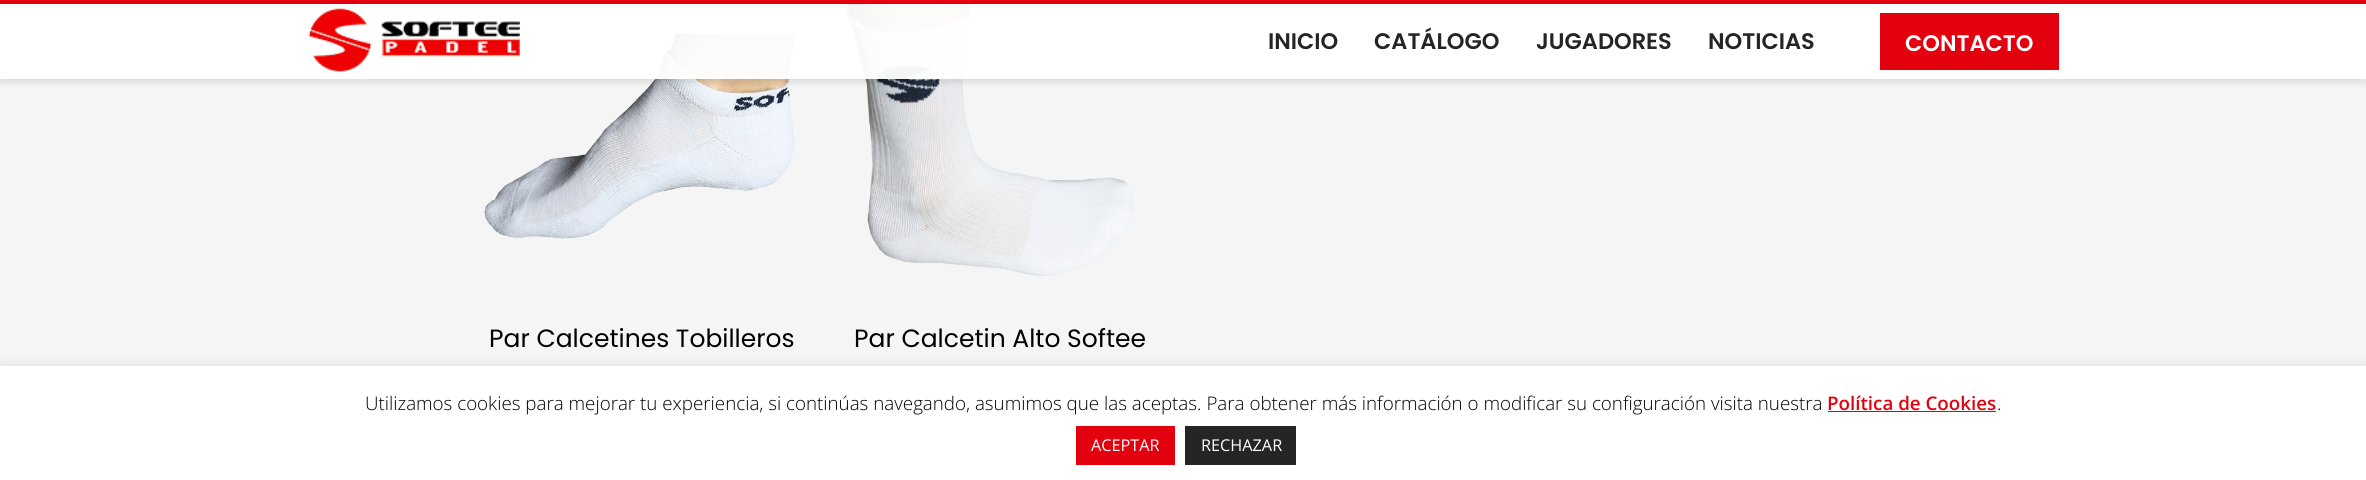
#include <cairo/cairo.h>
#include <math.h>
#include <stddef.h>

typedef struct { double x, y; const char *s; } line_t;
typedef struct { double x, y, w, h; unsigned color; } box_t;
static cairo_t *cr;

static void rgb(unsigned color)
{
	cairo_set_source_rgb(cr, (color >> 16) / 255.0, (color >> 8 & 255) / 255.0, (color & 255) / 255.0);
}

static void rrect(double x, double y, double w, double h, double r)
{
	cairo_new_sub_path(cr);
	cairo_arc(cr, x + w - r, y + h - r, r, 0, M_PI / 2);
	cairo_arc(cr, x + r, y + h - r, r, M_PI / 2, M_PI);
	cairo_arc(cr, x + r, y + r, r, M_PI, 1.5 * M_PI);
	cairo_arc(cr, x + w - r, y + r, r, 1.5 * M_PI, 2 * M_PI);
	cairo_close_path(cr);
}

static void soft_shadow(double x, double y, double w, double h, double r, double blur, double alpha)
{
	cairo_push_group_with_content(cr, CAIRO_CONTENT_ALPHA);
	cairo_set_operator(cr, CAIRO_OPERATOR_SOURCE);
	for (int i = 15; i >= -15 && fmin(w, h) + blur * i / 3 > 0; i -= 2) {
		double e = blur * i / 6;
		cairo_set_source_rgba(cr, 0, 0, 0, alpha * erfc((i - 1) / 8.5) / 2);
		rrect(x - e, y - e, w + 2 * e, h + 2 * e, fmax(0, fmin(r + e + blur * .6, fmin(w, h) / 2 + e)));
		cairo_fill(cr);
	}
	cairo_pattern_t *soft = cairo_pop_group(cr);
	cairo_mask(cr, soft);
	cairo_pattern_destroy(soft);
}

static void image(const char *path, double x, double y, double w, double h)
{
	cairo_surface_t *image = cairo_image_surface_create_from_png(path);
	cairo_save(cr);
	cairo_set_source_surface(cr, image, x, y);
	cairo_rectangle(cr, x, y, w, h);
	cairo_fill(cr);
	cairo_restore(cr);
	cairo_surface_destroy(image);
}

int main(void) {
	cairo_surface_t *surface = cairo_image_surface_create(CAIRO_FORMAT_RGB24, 2366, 480);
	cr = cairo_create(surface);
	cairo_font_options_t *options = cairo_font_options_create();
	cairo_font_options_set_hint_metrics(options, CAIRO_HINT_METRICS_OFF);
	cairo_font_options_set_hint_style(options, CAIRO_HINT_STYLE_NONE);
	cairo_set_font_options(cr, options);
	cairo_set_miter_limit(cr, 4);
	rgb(0xf5f5f5);
	cairo_paint(cr);
	image("img/2.png", 484, 33, 312, 206);
	image("img/3.png", 846, 4, 288, 272);
	cairo_save(cr);
	cairo_set_fill_rule(cr, CAIRO_FILL_RULE_EVEN_ODD);
	cairo_new_path(cr);
	cairo_move_to(cr, 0, 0);
	cairo_line_to(cr, 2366, 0);
	cairo_line_to(cr, 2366, 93);
	cairo_line_to(cr, 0, 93);
	cairo_close_path(cr);
	cairo_move_to(cr, 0, 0);
	cairo_line_to(cr, 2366, 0);
	cairo_line_to(cr, 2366, 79);
	cairo_line_to(cr, 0, 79);
	cairo_close_path(cr);
	cairo_clip(cr);
	rgb(0x000000);
	soft_shadow(0, 4, 2366, 79, 0, 3, 0.1);
	cairo_restore(cr);
	cairo_set_source_rgba(cr, 1, 1, 1, 0.95);
	cairo_rectangle(cr, 0, 4, 2366, 75);
	cairo_fill(cr);
	rgb(0xe3000f);
	cairo_rectangle(cr, 0, 0, 2366, 4);
	cairo_fill(cr);
	image("img/1.png", 308, 8, 212, 64);
	cairo_rectangle(cr, 1880, 13, 179, 57);
	cairo_fill(cr);
	rgb(0xacabab);
	soft_shadow(0, 365, 2366, 114, 0, 6, 0.3);
	{
		static const box_t items[] = {
			{0, 366, 2366, 114, 0xffffff},
			{1828, 411, 168, 1, 0xe3000f},
			{1076, 426, 99, 39, 0xe3000f},
			{1185, 426, 111, 39, 0x252525},
		};
		for (size_t i = 0; i < sizeof items / sizeof *items; i++) {
			rgb(items[i].color);
			cairo_rectangle(cr, items[i].x, items[i].y, items[i].w, items[i].h);
			cairo_fill(cr);
		}
	}
	cairo_select_font_face(cr, "Poppins SemiBold", CAIRO_FONT_SLANT_NORMAL, CAIRO_FONT_WEIGHT_NORMAL);
	cairo_set_font_size(cr, 22.5);
	{
		static const line_t items[] = {
			{1268, 49, "INICIO"},
			{1374, 49, "CATÁLOGO"},
			{1536, 49, "JUGADORES"},
			{1708, 49, "NOTICIAS"},
		};
		for (size_t i = 0; i < sizeof items / sizeof *items; i++) {
			cairo_move_to(cr, items[i].x, items[i].y);
			cairo_show_text(cr, items[i].s);
		}
	}
	rgb(0xffffff);
	cairo_move_to(cr, 1905, 51);
	cairo_show_text(cr, "CONTACTO");
	cairo_select_font_face(cr, "Poppins", CAIRO_FONT_SLANT_NORMAL, CAIRO_FONT_WEIGHT_NORMAL);
	cairo_set_font_size(cr, 25);
	rgb(0x000000);
	cairo_move_to(cr, 489, 347);
	cairo_show_text(cr, "Par Calcetines Tobilleros");
	cairo_move_to(cr, 854, 347);
	cairo_show_text(cr, "Par Calcetin Alto Softee");
	cairo_select_font_face(cr, "Open Sans Light", CAIRO_FONT_SLANT_NORMAL, CAIRO_FONT_WEIGHT_NORMAL);
	cairo_set_font_size(cr, 18.75);
	cairo_move_to(cr, 365, 410);
	cairo_show_text(cr, "Utilizamos cookies para mejorar tu experiencia, si continúas navegando, asumimos que las aceptas. Para obtener más información o modificar su configuración visita nuestra");
	cairo_select_font_face(cr, "Open Sans SemiBold", CAIRO_FONT_SLANT_NORMAL, CAIRO_FONT_WEIGHT_NORMAL);
	rgb(0xe3000f);
	cairo_move_to(cr, 1827, 410);
	cairo_show_text(cr, "Política de Cookies");
	cairo_select_font_face(cr, "Open Sans Light", CAIRO_FONT_SLANT_NORMAL, CAIRO_FONT_WEIGHT_NORMAL);
	rgb(0x000000);
	cairo_move_to(cr, 1997, 410);
	cairo_show_text(cr, ".");
	cairo_select_font_face(cr, "Open Sans", CAIRO_FONT_SLANT_NORMAL, CAIRO_FONT_WEIGHT_NORMAL);
	cairo_set_font_size(cr, 16.25);
	rgb(0xffffff);
	cairo_move_to(cr, 1091, 451);
	cairo_show_text(cr, "ACEPTAR");
	cairo_move_to(cr, 1201, 451);
	cairo_show_text(cr, "RECHAZAR");
	cairo_surface_write_to_png(surface, "page.png");
	cairo_font_options_destroy(options);
	cairo_destroy(cr);
	cairo_surface_destroy(surface);
	return 0;
}
